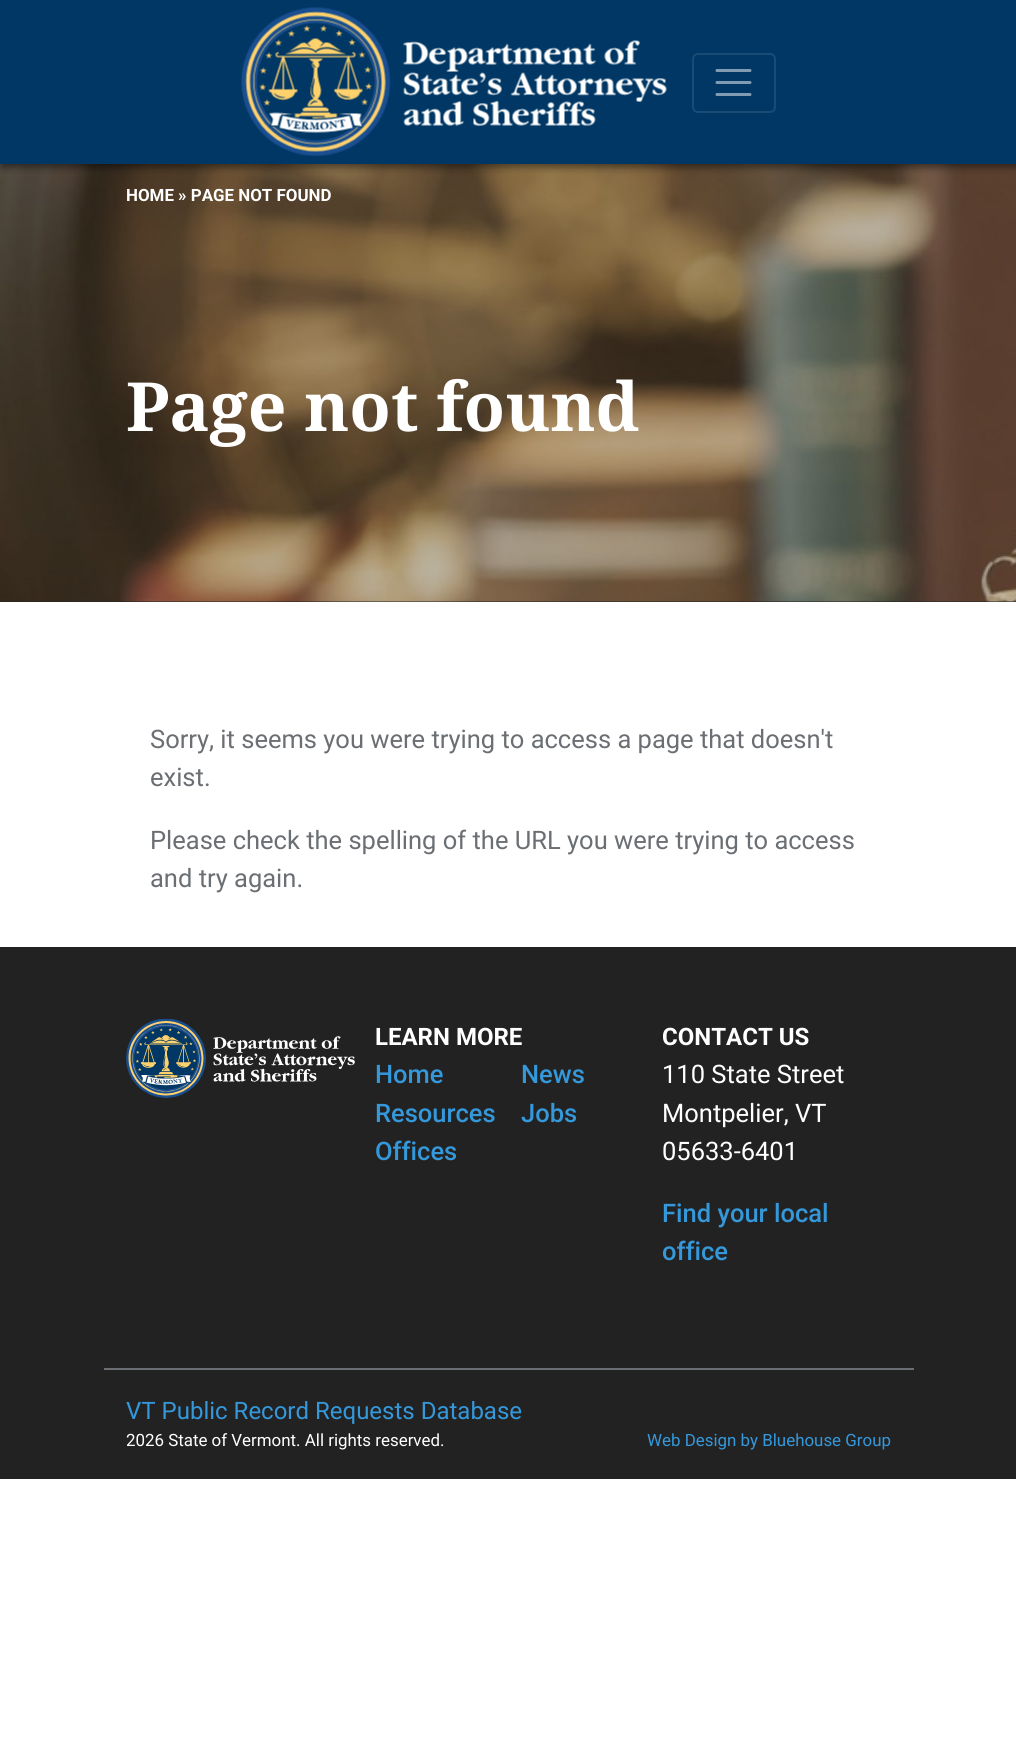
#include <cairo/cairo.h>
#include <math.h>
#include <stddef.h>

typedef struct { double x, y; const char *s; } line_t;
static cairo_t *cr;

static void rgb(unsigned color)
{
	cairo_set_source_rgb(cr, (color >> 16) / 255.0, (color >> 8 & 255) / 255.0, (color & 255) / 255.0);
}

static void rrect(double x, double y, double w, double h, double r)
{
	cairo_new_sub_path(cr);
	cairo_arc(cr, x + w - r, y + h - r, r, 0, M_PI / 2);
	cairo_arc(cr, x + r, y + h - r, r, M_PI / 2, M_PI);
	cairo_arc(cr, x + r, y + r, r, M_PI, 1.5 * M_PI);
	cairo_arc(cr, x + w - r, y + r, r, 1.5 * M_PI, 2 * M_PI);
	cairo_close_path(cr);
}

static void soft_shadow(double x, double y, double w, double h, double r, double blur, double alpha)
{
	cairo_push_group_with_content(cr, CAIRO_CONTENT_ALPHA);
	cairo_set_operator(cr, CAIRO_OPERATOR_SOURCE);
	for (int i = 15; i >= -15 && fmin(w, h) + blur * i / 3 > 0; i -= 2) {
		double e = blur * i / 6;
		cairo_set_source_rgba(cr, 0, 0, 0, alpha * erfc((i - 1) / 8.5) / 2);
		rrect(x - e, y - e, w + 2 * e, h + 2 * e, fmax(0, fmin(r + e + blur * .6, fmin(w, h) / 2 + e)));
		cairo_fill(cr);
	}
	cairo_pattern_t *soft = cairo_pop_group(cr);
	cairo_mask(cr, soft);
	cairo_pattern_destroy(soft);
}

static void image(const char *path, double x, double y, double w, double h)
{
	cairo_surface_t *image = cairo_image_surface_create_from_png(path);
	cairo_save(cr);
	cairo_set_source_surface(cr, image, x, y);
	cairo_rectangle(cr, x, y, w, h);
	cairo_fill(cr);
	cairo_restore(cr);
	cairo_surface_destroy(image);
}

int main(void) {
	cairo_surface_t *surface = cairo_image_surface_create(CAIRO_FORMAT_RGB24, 1016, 1755);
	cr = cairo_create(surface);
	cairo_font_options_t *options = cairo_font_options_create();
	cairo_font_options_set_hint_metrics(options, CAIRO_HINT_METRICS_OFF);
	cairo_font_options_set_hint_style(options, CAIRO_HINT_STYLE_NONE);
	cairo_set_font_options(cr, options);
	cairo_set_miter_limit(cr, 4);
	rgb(0xffffff);
	cairo_paint(cr);
	rgb(0x222222);
	cairo_rectangle(cr, 0, 601, 1016, 1);
	cairo_fill(cr);
	image("img/2.png", 0, 164, 1016, 438);
	rgb(0x000000);
	soft_shadow(2, 3, 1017, 164, 0, 4, 0.5);
	rgb(0x003764);
	cairo_rectangle(cr, 0, 0, 1016, 164);
	cairo_fill(cr);
	image("img/1.png", 241, 7, 426, 150);
	rrect(693, 54, 82, 58, 5);
	rgb(0x1a4b74);
	cairo_stroke(cr);
	cairo_new_path(cr);
	cairo_move_to(cr, 717, 70.5);
	cairo_line_to(cr, 750, 70.5);
	cairo_move_to(cr, 717, 82.5);
	cairo_line_to(cr, 750, 82.5);
	cairo_move_to(cr, 717, 94.5);
	cairo_line_to(cr, 750, 94.5);
	rgb(0x809bb2);
	cairo_set_line_width(cr, 3);
	cairo_set_line_cap(cr, CAIRO_LINE_CAP_ROUND);
	cairo_stroke(cr);
	rgb(0x222222);
	cairo_rectangle(cr, 0, 947, 1016, 532);
	cairo_fill(cr);
	image("img/3.png", 126, 1019, 229, 79);
	rgb(0x6b6f73);
	cairo_rectangle(cr, 104, 1368, 810, 2);
	cairo_fill(cr);
	cairo_select_font_face(cr, "Roboto", CAIRO_FONT_SLANT_NORMAL, CAIRO_FONT_WEIGHT_BOLD);
	cairo_set_font_size(cr, 16.9);
	rgb(0xffffff);
	cairo_move_to(cr, 126, 201);
	cairo_show_text(cr, "HOME » PAGE NOT FOUND");
	cairo_select_font_face(cr, "Noto Serif", CAIRO_FONT_SLANT_NORMAL, CAIRO_FONT_WEIGHT_BOLD);
	cairo_set_font_size(cr, 67.75);
	cairo_move_to(cr, 126, 431);
	cairo_show_text(cr, "Page not found");
	cairo_select_font_face(cr, "Roboto", CAIRO_FONT_SLANT_NORMAL, CAIRO_FONT_WEIGHT_NORMAL);
	cairo_set_font_size(cr, 25.5);
	rgb(0x6b6f73);
	{
		static const line_t items[] = {
			{150, 748, "Sorry, it seems you were trying to access a page that doesn't"},
			{150, 786, "exist."},
			{150, 849, "Please check the spelling of the URL you were trying to access"},
			{150, 887, "and try again."},
		};
		for (size_t i = 0; i < sizeof items / sizeof *items; i++) {
			cairo_move_to(cr, items[i].x, items[i].y);
			cairo_show_text(cr, items[i].s);
		}
	}
	cairo_select_font_face(cr, "Roboto", CAIRO_FONT_SLANT_NORMAL, CAIRO_FONT_WEIGHT_BOLD);
	cairo_set_font_size(cr, 24);
	rgb(0xffffff);
	cairo_move_to(cr, 375, 1045);
	cairo_show_text(cr, "LEARN MORE");
	cairo_select_font_face(cr, "Roboto Medium", CAIRO_FONT_SLANT_NORMAL, CAIRO_FONT_WEIGHT_NORMAL);
	cairo_set_font_size(cr, 25.5);
	rgb(0x3498db);
	{
		static const line_t items[] = {
			{375, 1083, "Home"},
			{521, 1083, "News"},
			{375, 1122, "Resources"},
			{521, 1122, "Jobs"},
			{375, 1160, "Offices"},
		};
		for (size_t i = 0; i < sizeof items / sizeof *items; i++) {
			cairo_move_to(cr, items[i].x, items[i].y);
			cairo_show_text(cr, items[i].s);
		}
	}
	cairo_select_font_face(cr, "Roboto", CAIRO_FONT_SLANT_NORMAL, CAIRO_FONT_WEIGHT_BOLD);
	cairo_set_font_size(cr, 24);
	rgb(0xffffff);
	cairo_move_to(cr, 662, 1045);
	cairo_show_text(cr, "CONTACT US");
	cairo_select_font_face(cr, "Roboto", CAIRO_FONT_SLANT_NORMAL, CAIRO_FONT_WEIGHT_NORMAL);
	cairo_set_font_size(cr, 25.5);
	{
		static const line_t items[] = {
			{662, 1083, "110 State Street"},
			{662, 1122, "Montpelier, VT"},
			{662, 1160, "05633-6401"},
		};
		for (size_t i = 0; i < sizeof items / sizeof *items; i++) {
			cairo_move_to(cr, items[i].x, items[i].y);
			cairo_show_text(cr, items[i].s);
		}
	}
	cairo_select_font_face(cr, "Roboto Medium", CAIRO_FONT_SLANT_NORMAL, CAIRO_FONT_WEIGHT_NORMAL);
	rgb(0x3498db);
	cairo_move_to(cr, 662, 1222);
	cairo_show_text(cr, "Find your local");
	cairo_move_to(cr, 662, 1260);
	cairo_show_text(cr, "office");
	cairo_select_font_face(cr, "Roboto", CAIRO_FONT_SLANT_NORMAL, CAIRO_FONT_WEIGHT_NORMAL);
	cairo_set_font_size(cr, 24);
	cairo_move_to(cr, 126, 1419);
	cairo_show_text(cr, "VT Public Record Requests Database");
	cairo_set_font_size(cr, 16.9);
	rgb(0xffffff);
	cairo_move_to(cr, 126, 1446);
	cairo_show_text(cr, "2026 State of Vermont. All rights reserved.");
	rgb(0x3498db);
	cairo_move_to(cr, 647, 1446);
	cairo_show_text(cr, "Web Design by Bluehouse Group");
	cairo_surface_write_to_png(surface, "page.png");
	cairo_font_options_destroy(options);
	cairo_destroy(cr);
	cairo_surface_destroy(surface);
	return 0;
}
